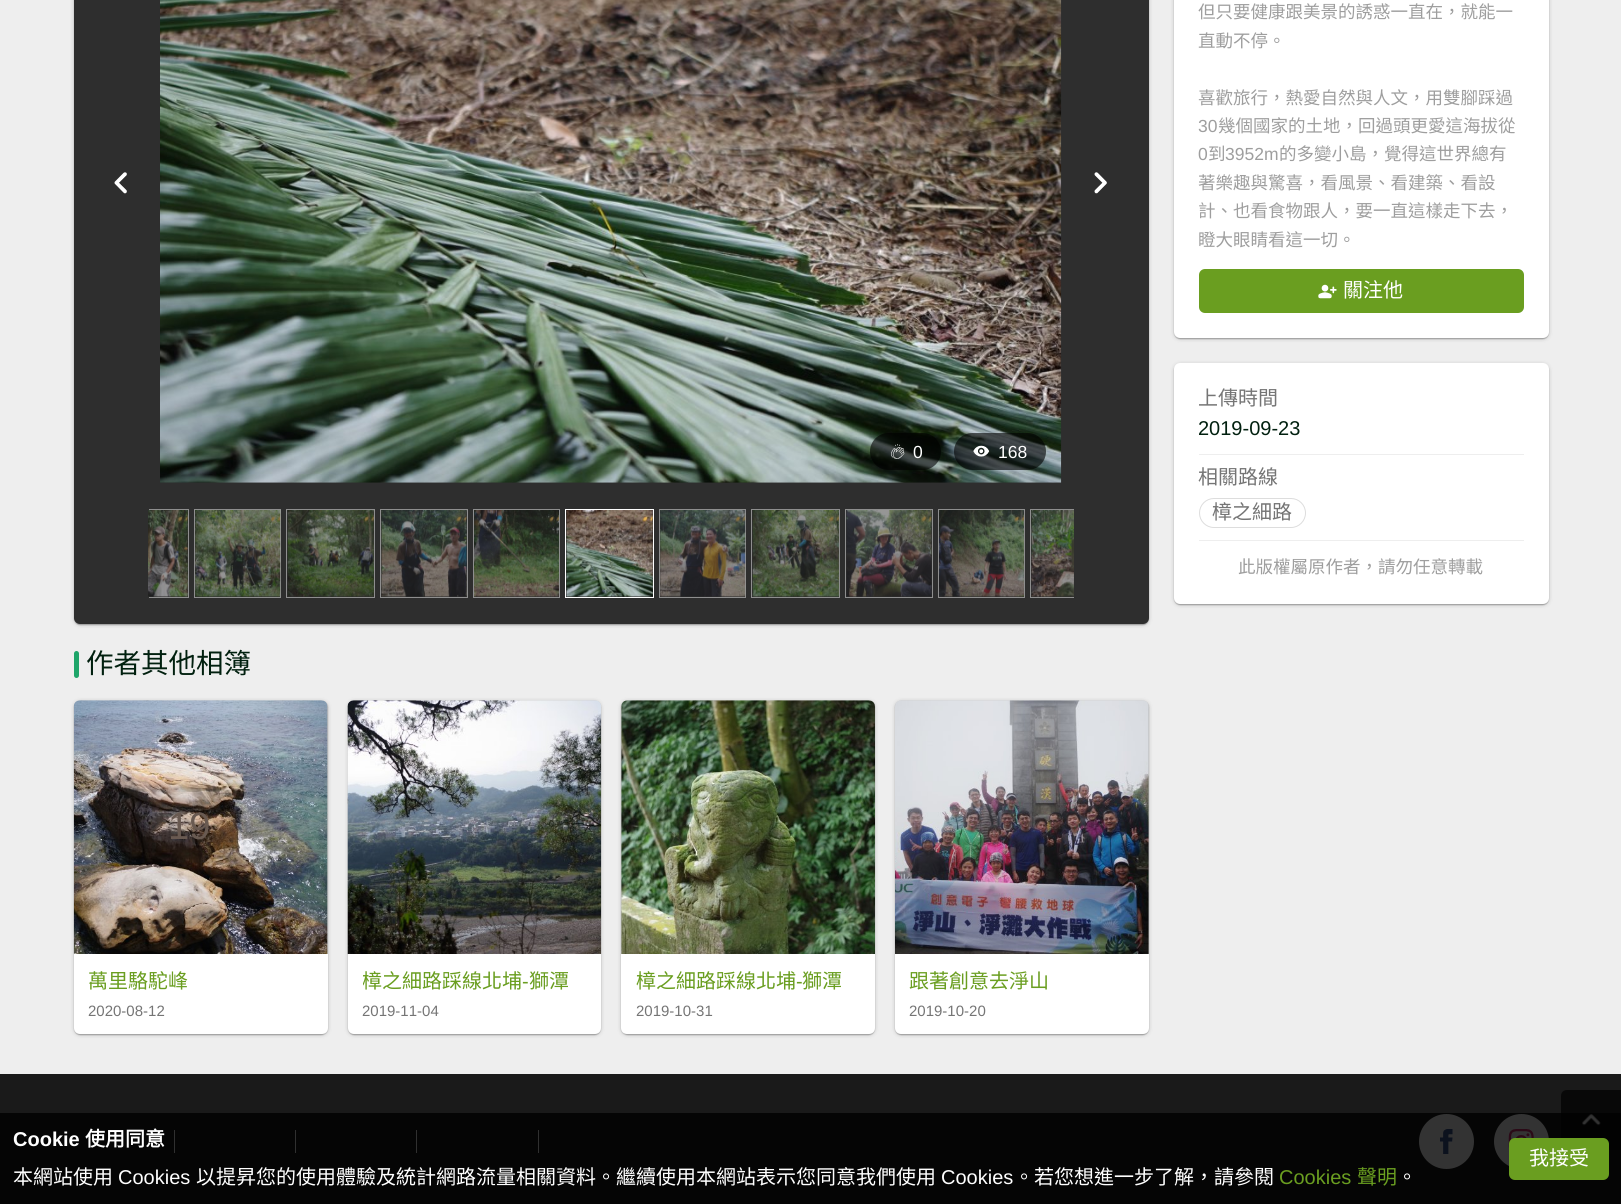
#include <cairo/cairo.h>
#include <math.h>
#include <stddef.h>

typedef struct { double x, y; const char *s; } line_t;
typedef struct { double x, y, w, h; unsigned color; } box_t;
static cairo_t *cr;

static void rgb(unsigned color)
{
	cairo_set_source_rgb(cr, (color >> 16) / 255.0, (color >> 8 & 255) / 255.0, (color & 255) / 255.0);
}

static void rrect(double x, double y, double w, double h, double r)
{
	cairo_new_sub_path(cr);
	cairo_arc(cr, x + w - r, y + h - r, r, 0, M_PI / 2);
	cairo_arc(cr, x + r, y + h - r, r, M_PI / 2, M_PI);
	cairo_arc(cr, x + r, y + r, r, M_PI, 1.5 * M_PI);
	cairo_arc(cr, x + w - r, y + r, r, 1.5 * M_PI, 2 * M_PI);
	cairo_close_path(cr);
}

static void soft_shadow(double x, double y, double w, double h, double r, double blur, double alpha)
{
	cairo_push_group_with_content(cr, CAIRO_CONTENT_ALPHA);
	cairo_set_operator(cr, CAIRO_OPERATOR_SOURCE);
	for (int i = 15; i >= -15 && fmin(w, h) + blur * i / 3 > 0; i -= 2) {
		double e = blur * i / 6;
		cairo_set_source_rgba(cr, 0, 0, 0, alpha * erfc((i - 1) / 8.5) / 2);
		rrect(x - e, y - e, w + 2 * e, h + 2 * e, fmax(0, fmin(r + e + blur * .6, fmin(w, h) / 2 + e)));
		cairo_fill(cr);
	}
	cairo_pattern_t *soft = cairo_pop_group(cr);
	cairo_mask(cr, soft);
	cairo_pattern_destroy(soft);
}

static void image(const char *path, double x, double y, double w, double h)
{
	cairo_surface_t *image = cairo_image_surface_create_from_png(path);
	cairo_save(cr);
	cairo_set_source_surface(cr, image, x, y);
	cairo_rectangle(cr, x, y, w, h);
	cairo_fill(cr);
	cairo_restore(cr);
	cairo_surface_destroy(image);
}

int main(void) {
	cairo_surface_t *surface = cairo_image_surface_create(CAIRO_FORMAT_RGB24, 1621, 1204);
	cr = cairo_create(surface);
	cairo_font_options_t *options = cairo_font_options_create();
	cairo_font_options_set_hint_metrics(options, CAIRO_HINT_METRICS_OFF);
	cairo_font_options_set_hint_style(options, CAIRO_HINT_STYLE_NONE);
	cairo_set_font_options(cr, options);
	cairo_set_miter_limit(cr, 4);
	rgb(0xeeeeee);
	cairo_paint(cr);
	rgb(0x000000);
	soft_shadow(1174, -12, 375, 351, 6, 2, 0.2);
	soft_shadow(1175, -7, 373, 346, 5, 0.5, 0.12);
	soft_shadow(1174, -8, 375, 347, 6, 0.5, 0.14);
	rgb(0xffffff);
	rrect(1174, -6, 375, 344, 6);
	cairo_fill(cr);
	rgb(0x6a9e20);
	rrect(1199, 269, 325, 44, 6);
	cairo_fill(cr);
	image("img/1.png", 1318, 284, 19, 15);
	rgb(0x000000);
	soft_shadow(1174, 364, 375, 241, 6, 2, 0.2);
	soft_shadow(1175, 366, 373, 239, 5, 0.5, 0.12);
	soft_shadow(1174, 364, 375, 241, 6, 0.5, 0.14);
	rgb(0xffffff);
	rrect(1174, 363, 375, 241, 6);
	cairo_fill(cr);
	rgb(0xeeeeee);
	cairo_rectangle(cr, 1199, 454, 325, 1);
	cairo_fill(cr);
	rrect(1199.5, 498.5, 106, 29, 14.5);
	rgb(0xdddddd);
	cairo_set_line_width(cr, 1);
	cairo_stroke(cr);
	rgb(0xeeeeee);
	cairo_rectangle(cr, 1199, 540, 325, 1);
	cairo_fill(cr);
	rgb(0x000000);
	soft_shadow(74, -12, 1075, 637, 6, 2, 0.2);
	soft_shadow(75, -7, 1073, 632, 5, 0.5, 0.12);
	soft_shadow(74, -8, 1075, 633, 6, 0.5, 0.14);
	rgb(0x2e2e2e);
	rrect(74, -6, 1075, 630, 6);
	cairo_fill(cr);
	image("img/2.png", 114, 172, 13, 22);
	image("img/3.png", 1094, 172, 13, 22);
	image("img/4.png", 160, 0, 902, 483);
	cairo_set_source_rgba(cr, 0, 0, 0, 0.6);
	rrect(870, 433, 71, 37, 18.5);
	cairo_fill(cr);
	image("img/5.png", 891, 444, 14, 15);
	rrect(954, 433, 92, 37, 18.5);
	cairo_fill(cr);
	image("img/6.png", 973, 445, 17, 12);
	cairo_save(cr);
	cairo_rectangle(cr, 149, 508, 925, 91);
	cairo_clip(cr);
	cairo_rectangle(cr, 100.5, 509.5, 88, 88);
	rgb(0x8e8e8e);
	cairo_stroke(cr);
	cairo_restore(cr);
	image("img/7.png", 148, 510, 40, 87);
	cairo_rectangle(cr, 194.5, 509.5, 86, 88);
	rgb(0x8e8e8e);
	cairo_stroke(cr);
	image("img/8.png", 195, 510, 86, 87);
	cairo_rectangle(cr, 286.5, 509.5, 88, 88);
	cairo_stroke(cr);
	image("img/9.png", 287, 510, 87, 87);
	cairo_rectangle(cr, 380.5, 509.5, 87, 88);
	cairo_stroke(cr);
	image("img/10.png", 381, 510, 86, 87);
	cairo_rectangle(cr, 473.5, 509.5, 86, 88);
	cairo_stroke(cr);
	image("img/11.png", 474, 510, 85, 87);
	cairo_rectangle(cr, 565.5, 509.5, 88, 88);
	rgb(0xffffff);
	cairo_stroke(cr);
	image("img/12.png", 566, 510, 87, 87);
	cairo_rectangle(cr, 659.5, 509.5, 86, 88);
	rgb(0x8e8e8e);
	cairo_stroke(cr);
	image("img/13.png", 660, 510, 86, 87);
	cairo_rectangle(cr, 751.5, 509.5, 88, 88);
	cairo_stroke(cr);
	image("img/14.png", 752, 510, 87, 87);
	cairo_rectangle(cr, 845.5, 509.5, 87, 88);
	cairo_stroke(cr);
	image("img/15.png", 846, 510, 86, 87);
	cairo_rectangle(cr, 938.5, 509.5, 86, 88);
	cairo_stroke(cr);
	image("img/16.png", 939, 510, 85, 87);
	cairo_save(cr);
	cairo_rectangle(cr, 149, 508, 925, 91);
	cairo_clip(cr);
	cairo_rectangle(cr, 1030.5, 509.5, 88, 88);
	cairo_stroke(cr);
	cairo_restore(cr);
	image("img/17.png", 1031, 510, 43, 87);
	rgb(0x1ea569);
	rrect(74, 651, 5, 27, 2.5);
	cairo_fill(cr);
	rgb(0x000000);
	soft_shadow(74, 701, 254, 334, 6, 2, 0.2);
	soft_shadow(75, 704, 251, 331, 5, 0.5, 0.12);
	soft_shadow(74, 701, 254, 334, 6, 0.5, 0.14);
	image("img/18.png", 73, 700, 255, 254);
	rgb(0xffffff);
	cairo_new_path(cr);
	cairo_move_to(cr, 74, 954);
	cairo_line_to(cr, 328, 954);
	cairo_line_to(cr, 328, 1028);
	cairo_curve_to(cr, 328, 1031.5, 325.5, 1034, 322, 1034);
	cairo_line_to(cr, 80, 1034);
	cairo_curve_to(cr, 76.5, 1034, 74, 1031.5, 74, 1028);
	cairo_close_path(cr);
	cairo_fill(cr);
	rgb(0x000000);
	soft_shadow(348, 701, 253, 334, 6, 2, 0.2);
	soft_shadow(349, 704, 251, 331, 5, 0.5, 0.12);
	soft_shadow(348, 701, 253, 334, 6, 0.5, 0.14);
	image("img/19.png", 347, 700, 255, 254);
	rgb(0xffffff);
	cairo_new_path(cr);
	cairo_move_to(cr, 348, 954);
	cairo_line_to(cr, 601, 954);
	cairo_line_to(cr, 601, 1028);
	cairo_curve_to(cr, 601, 1031.5, 598.5, 1034, 595, 1034);
	cairo_line_to(cr, 354, 1034);
	cairo_curve_to(cr, 350.5, 1034, 348, 1031.5, 348, 1028);
	cairo_close_path(cr);
	cairo_fill(cr);
	rgb(0x000000);
	soft_shadow(621, 701, 254, 334, 6, 2, 0.2);
	soft_shadow(623, 704, 251, 331, 5, 0.5, 0.12);
	soft_shadow(621, 701, 254, 334, 6, 0.5, 0.14);
	image("img/20.png", 621, 700, 254, 254);
	rgb(0xffffff);
	cairo_new_path(cr);
	cairo_move_to(cr, 621, 954);
	cairo_line_to(cr, 875, 954);
	cairo_line_to(cr, 875, 1028);
	cairo_curve_to(cr, 875, 1031.5, 872.5, 1034, 869, 1034);
	cairo_line_to(cr, 627, 1034);
	cairo_curve_to(cr, 623.5, 1034, 621, 1031.5, 621, 1028);
	cairo_close_path(cr);
	cairo_fill(cr);
	rgb(0x000000);
	soft_shadow(895, 701, 254, 334, 6, 2, 0.2);
	soft_shadow(896, 704, 252, 331, 5, 0.5, 0.12);
	soft_shadow(895, 701, 254, 334, 6, 0.5, 0.14);
	image("img/21.png", 895, 700, 254, 254);
	rgb(0xffffff);
	cairo_new_path(cr);
	cairo_move_to(cr, 895, 954);
	cairo_line_to(cr, 1149, 954);
	cairo_line_to(cr, 1149, 1028);
	cairo_curve_to(cr, 1149, 1031.5, 1146.5, 1034, 1143, 1034);
	cairo_line_to(cr, 901, 1034);
	cairo_curve_to(cr, 897.5, 1034, 895, 1031.5, 895, 1028);
	cairo_close_path(cr);
	cairo_fill(cr);
	{
		static const box_t items[] = {
			{0, 1074, 1621, 130, 0x1a1a1a},
			{174, 1130, 1, 23, 0xeeeeee},
			{295, 1130, 1, 23, 0xeeeeee},
			{416, 1130, 1, 23, 0xeeeeee},
			{538, 1130, 1, 23, 0xeeeeee},
		};
		for (size_t i = 0; i < sizeof items / sizeof *items; i++) {
			rgb(items[i].color);
			cairo_rectangle(cr, items[i].x, items[i].y, items[i].w, items[i].h);
			cairo_fill(cr);
		}
	}
	rgb(0xffffff);
	cairo_arc(cr, 1446.5, 1141.5, 27.5, 0, 2 * M_PI);
	cairo_fill(cr);
	image("img/22.png", 1440, 1129, 13, 25);
	cairo_arc(cr, 1521.5, 1141.5, 27.5, 0, 2 * M_PI);
	cairo_fill(cr);
	image("img/23.png", 1508, 1129, 26, 19);
	rgb(0x080808);
	cairo_new_path(cr);
	cairo_move_to(cr, 1567, 1090);
	cairo_line_to(cr, 1621, 1090);
	cairo_line_to(cr, 1621, 1150);
	cairo_line_to(cr, 1567, 1150);
	cairo_curve_to(cr, 1563.5, 1150, 1561, 1147.5, 1561, 1144);
	cairo_line_to(cr, 1561, 1096);
	cairo_curve_to(cr, 1561, 1092.5, 1563.5, 1090, 1567, 1090);
	cairo_close_path(cr);
	cairo_fill(cr);
	image("img/24.png", 1582, 1114, 19, 12);
	cairo_set_source_rgba(cr, 0, 0, 0, 0.8);
	cairo_rectangle(cr, 0, 1113, 1621, 91);
	cairo_fill(cr);
	rgb(0x6a9e20);
	rrect(1509, 1138, 100, 42, 6);
	cairo_fill(cr);
	cairo_select_font_face(cr, "Noto Sans CJK TC", CAIRO_FONT_SLANT_NORMAL, CAIRO_FONT_WEIGHT_NORMAL);
	cairo_set_font_size(cr, 17.5);
	rgb(0x9e9e9e);
	{
		static const line_t items[] = {
			{1198, 18, "但只要健康跟美景的誘惑一直在，就能一"},
			{1198, 47, "直動不停。"},
			{1198, 104, "喜歡旅行，熱愛自然與人文，用雙腳踩過"},
		};
		for (size_t i = 0; i < sizeof items / sizeof *items; i++) {
			cairo_move_to(cr, items[i].x, items[i].y);
			cairo_show_text(cr, items[i].s);
		}
	}
	cairo_select_font_face(cr, "Liberation Sans", CAIRO_FONT_SLANT_NORMAL, CAIRO_FONT_WEIGHT_NORMAL);
	cairo_move_to(cr, 1198, 132);
	cairo_show_text(cr, "30");
	cairo_select_font_face(cr, "Noto Sans CJK TC", CAIRO_FONT_SLANT_NORMAL, CAIRO_FONT_WEIGHT_NORMAL);
	cairo_move_to(cr, 1218, 132);
	cairo_show_text(cr, "幾個國家的土地，回過頭更愛這海拔從");
	cairo_select_font_face(cr, "Liberation Sans", CAIRO_FONT_SLANT_NORMAL, CAIRO_FONT_WEIGHT_NORMAL);
	cairo_move_to(cr, 1198, 160);
	cairo_show_text(cr, "0");
	cairo_select_font_face(cr, "Noto Sans CJK TC", CAIRO_FONT_SLANT_NORMAL, CAIRO_FONT_WEIGHT_NORMAL);
	cairo_move_to(cr, 1208, 160);
	cairo_show_text(cr, "到");
	cairo_select_font_face(cr, "Liberation Sans", CAIRO_FONT_SLANT_NORMAL, CAIRO_FONT_WEIGHT_NORMAL);
	cairo_move_to(cr, 1225, 160);
	cairo_show_text(cr, "3952m");
	cairo_select_font_face(cr, "Noto Sans CJK TC", CAIRO_FONT_SLANT_NORMAL, CAIRO_FONT_WEIGHT_NORMAL);
	{
		static const line_t items[] = {
			{1279, 160, "的多變小島，覺得這世界總有"},
			{1198, 189, "著樂趣與驚喜，看風景、看建築、看設"},
			{1198, 217, "計、也看食物跟人，要一直這樣走下去，"},
			{1198, 246, "瞪大眼睛看這一切。"},
		};
		for (size_t i = 0; i < sizeof items / sizeof *items; i++) {
			cairo_move_to(cr, items[i].x, items[i].y);
			cairo_show_text(cr, items[i].s);
		}
	}
	cairo_set_font_size(cr, 20);
	rgb(0xffffff);
	cairo_move_to(cr, 1343, 297);
	cairo_show_text(cr, "關注他");
	rgb(0x757575);
	cairo_move_to(cr, 1198, 405);
	cairo_show_text(cr, "上傳時間");
	cairo_select_font_face(cr, "Liberation Sans", CAIRO_FONT_SLANT_NORMAL, CAIRO_FONT_WEIGHT_NORMAL);
	rgb(0x01200f);
	cairo_move_to(cr, 1198, 435);
	cairo_show_text(cr, "2019-09-23");
	cairo_select_font_face(cr, "Noto Sans CJK TC", CAIRO_FONT_SLANT_NORMAL, CAIRO_FONT_WEIGHT_NORMAL);
	rgb(0x757575);
	cairo_move_to(cr, 1198, 484);
	cairo_show_text(cr, "相關路線");
	cairo_move_to(cr, 1212, 519);
	cairo_show_text(cr, "樟之細路");
	cairo_set_font_size(cr, 17.5);
	rgb(0x9e9e9e);
	cairo_move_to(cr, 1238, 573);
	cairo_show_text(cr, "此版權屬原作者，請勿任意轉載");
	cairo_select_font_face(cr, "Liberation Sans", CAIRO_FONT_SLANT_NORMAL, CAIRO_FONT_WEIGHT_NORMAL);
	rgb(0xffffff);
	cairo_move_to(cr, 913, 458);
	cairo_show_text(cr, "0");
	cairo_move_to(cr, 998, 458);
	cairo_show_text(cr, "168");
	cairo_select_font_face(cr, "Noto Sans CJK TC", CAIRO_FONT_SLANT_NORMAL, CAIRO_FONT_WEIGHT_NORMAL);
	cairo_set_font_size(cr, 27.5);
	rgb(0x01200f);
	cairo_move_to(cr, 86, 673);
	cairo_show_text(cr, "作者其他相簿");
	cairo_select_font_face(cr, "Liberation Sans", CAIRO_FONT_SLANT_NORMAL, CAIRO_FONT_WEIGHT_NORMAL);
	cairo_set_font_size(cr, 38);
	rgb(0x695a51);
	cairo_move_to(cr, 168, 839);
	cairo_show_text(cr, "19");
	cairo_select_font_face(cr, "Noto Sans CJK TC", CAIRO_FONT_SLANT_NORMAL, CAIRO_FONT_WEIGHT_NORMAL);
	cairo_set_font_size(cr, 20);
	rgb(0x6a9e20);
	cairo_move_to(cr, 88, 988);
	cairo_show_text(cr, "萬里駱駝峰");
	cairo_select_font_face(cr, "Liberation Sans", CAIRO_FONT_SLANT_NORMAL, CAIRO_FONT_WEIGHT_NORMAL);
	cairo_set_font_size(cr, 15);
	rgb(0x757575);
	cairo_move_to(cr, 88, 1016);
	cairo_show_text(cr, "2020-08-12");
	cairo_save(cr);
	cairo_rectangle(cr, 363, 966, 223, 30);
	cairo_clip(cr);
	cairo_select_font_face(cr, "Noto Sans CJK TC", CAIRO_FONT_SLANT_NORMAL, CAIRO_FONT_WEIGHT_NORMAL);
	cairo_set_font_size(cr, 20);
	rgb(0x6a9e20);
	cairo_move_to(cr, 362, 988);
	cairo_show_text(cr, "樟之細路踩線北埔");
	cairo_restore(cr);
	cairo_set_font_size(cr, 20);
	rgb(0x6a9e20);
	cairo_move_to(cr, 522, 988);
	cairo_show_text(cr, "-");
	cairo_select_font_face(cr, "Noto Sans CJK TC", CAIRO_FONT_SLANT_NORMAL, CAIRO_FONT_WEIGHT_NORMAL);
	cairo_move_to(cr, 529, 988);
	cairo_show_text(cr, "獅潭");
	cairo_select_font_face(cr, "Liberation Sans", CAIRO_FONT_SLANT_NORMAL, CAIRO_FONT_WEIGHT_NORMAL);
	cairo_set_font_size(cr, 15);
	rgb(0x757575);
	cairo_move_to(cr, 362, 1016);
	cairo_show_text(cr, "2019-11-04");
	cairo_select_font_face(cr, "Noto Sans CJK TC", CAIRO_FONT_SLANT_NORMAL, CAIRO_FONT_WEIGHT_NORMAL);
	cairo_set_font_size(cr, 20);
	rgb(0x6a9e20);
	cairo_move_to(cr, 636, 988);
	cairo_show_text(cr, "樟之細路踩線北埔");
	cairo_select_font_face(cr, "Liberation Sans", CAIRO_FONT_SLANT_NORMAL, CAIRO_FONT_WEIGHT_NORMAL);
	cairo_move_to(cr, 796, 988);
	cairo_show_text(cr, "-");
	cairo_select_font_face(cr, "Noto Sans CJK TC", CAIRO_FONT_SLANT_NORMAL, CAIRO_FONT_WEIGHT_NORMAL);
	cairo_move_to(cr, 802, 988);
	cairo_show_text(cr, "獅潭");
	cairo_select_font_face(cr, "Liberation Sans", CAIRO_FONT_SLANT_NORMAL, CAIRO_FONT_WEIGHT_NORMAL);
	cairo_set_font_size(cr, 15);
	rgb(0x757575);
	cairo_move_to(cr, 636, 1016);
	cairo_show_text(cr, "2019-10-31");
	cairo_select_font_face(cr, "Noto Sans CJK TC", CAIRO_FONT_SLANT_NORMAL, CAIRO_FONT_WEIGHT_NORMAL);
	cairo_set_font_size(cr, 20);
	rgb(0x6a9e20);
	cairo_move_to(cr, 909, 988);
	cairo_show_text(cr, "跟著創意去淨山");
	cairo_select_font_face(cr, "Liberation Sans", CAIRO_FONT_SLANT_NORMAL, CAIRO_FONT_WEIGHT_NORMAL);
	cairo_set_font_size(cr, 15);
	rgb(0x757575);
	cairo_move_to(cr, 909, 1016);
	cairo_show_text(cr, "2019-10-20");
	cairo_select_font_face(cr, "Liberation Sans", CAIRO_FONT_SLANT_NORMAL, CAIRO_FONT_WEIGHT_BOLD);
	cairo_set_font_size(cr, 20);
	rgb(0xffffff);
	cairo_move_to(cr, 13, 1146);
	cairo_show_text(cr, "Cookie");
	cairo_select_font_face(cr, "Noto Sans CJK TC", CAIRO_FONT_SLANT_NORMAL, CAIRO_FONT_WEIGHT_BOLD);
	cairo_move_to(cr, 85, 1146);
	cairo_show_text(cr, "使用同意");
	cairo_select_font_face(cr, "Noto Sans CJK TC", CAIRO_FONT_SLANT_NORMAL, CAIRO_FONT_WEIGHT_NORMAL);
	cairo_move_to(cr, 13, 1184);
	cairo_show_text(cr, "本網站使用");
	cairo_select_font_face(cr, "Liberation Sans", CAIRO_FONT_SLANT_NORMAL, CAIRO_FONT_WEIGHT_NORMAL);
	cairo_move_to(cr, 118, 1184);
	cairo_show_text(cr, "Cookies");
	cairo_select_font_face(cr, "Noto Sans CJK TC", CAIRO_FONT_SLANT_NORMAL, CAIRO_FONT_WEIGHT_NORMAL);
	cairo_move_to(cr, 196, 1184);
	cairo_show_text(cr, "以提昇您的使用體驗及統計網路流量相關資料。繼續使用本網站表示您同意我們使用");
	cairo_select_font_face(cr, "Liberation Sans", CAIRO_FONT_SLANT_NORMAL, CAIRO_FONT_WEIGHT_NORMAL);
	cairo_move_to(cr, 941, 1184);
	cairo_show_text(cr, "Cookies");
	cairo_select_font_face(cr, "Noto Sans CJK TC", CAIRO_FONT_SLANT_NORMAL, CAIRO_FONT_WEIGHT_NORMAL);
	cairo_move_to(cr, 1014, 1184);
	cairo_show_text(cr, "。若您想進一步了解，請參閱");
	cairo_select_font_face(cr, "Liberation Sans", CAIRO_FONT_SLANT_NORMAL, CAIRO_FONT_WEIGHT_NORMAL);
	rgb(0x6a9e20);
	cairo_move_to(cr, 1279, 1184);
	cairo_show_text(cr, "Cookies");
	cairo_select_font_face(cr, "Noto Sans CJK TC", CAIRO_FONT_SLANT_NORMAL, CAIRO_FONT_WEIGHT_NORMAL);
	cairo_move_to(cr, 1357, 1184);
	cairo_show_text(cr, "聲明");
	rgb(0xffffff);
	cairo_move_to(cr, 1397, 1184);
	cairo_show_text(cr, "。");
	cairo_move_to(cr, 1529, 1165);
	cairo_show_text(cr, "我接受");
	cairo_surface_write_to_png(surface, "page.png");
	cairo_font_options_destroy(options);
	cairo_destroy(cr);
	cairo_surface_destroy(surface);
	return 0;
}
